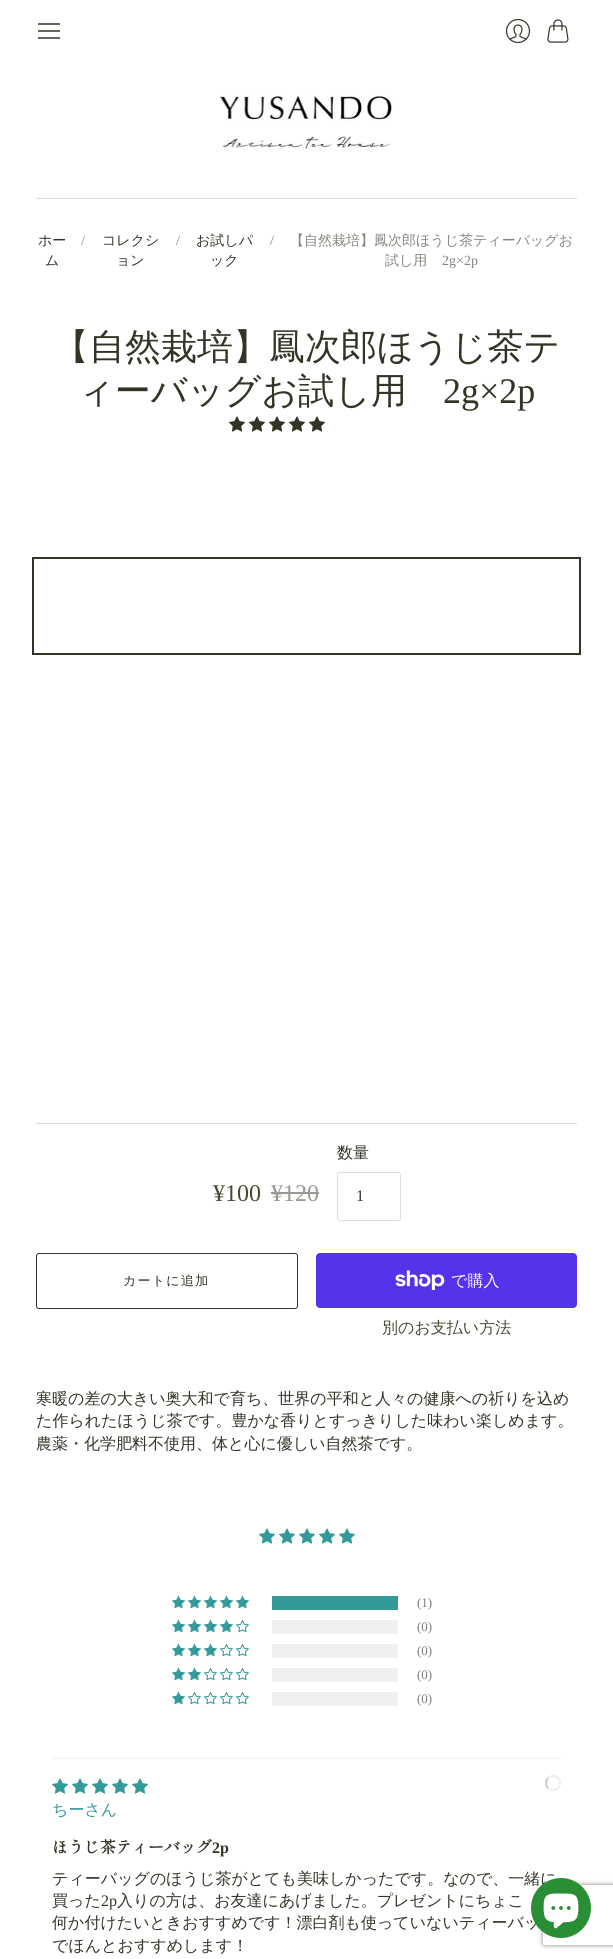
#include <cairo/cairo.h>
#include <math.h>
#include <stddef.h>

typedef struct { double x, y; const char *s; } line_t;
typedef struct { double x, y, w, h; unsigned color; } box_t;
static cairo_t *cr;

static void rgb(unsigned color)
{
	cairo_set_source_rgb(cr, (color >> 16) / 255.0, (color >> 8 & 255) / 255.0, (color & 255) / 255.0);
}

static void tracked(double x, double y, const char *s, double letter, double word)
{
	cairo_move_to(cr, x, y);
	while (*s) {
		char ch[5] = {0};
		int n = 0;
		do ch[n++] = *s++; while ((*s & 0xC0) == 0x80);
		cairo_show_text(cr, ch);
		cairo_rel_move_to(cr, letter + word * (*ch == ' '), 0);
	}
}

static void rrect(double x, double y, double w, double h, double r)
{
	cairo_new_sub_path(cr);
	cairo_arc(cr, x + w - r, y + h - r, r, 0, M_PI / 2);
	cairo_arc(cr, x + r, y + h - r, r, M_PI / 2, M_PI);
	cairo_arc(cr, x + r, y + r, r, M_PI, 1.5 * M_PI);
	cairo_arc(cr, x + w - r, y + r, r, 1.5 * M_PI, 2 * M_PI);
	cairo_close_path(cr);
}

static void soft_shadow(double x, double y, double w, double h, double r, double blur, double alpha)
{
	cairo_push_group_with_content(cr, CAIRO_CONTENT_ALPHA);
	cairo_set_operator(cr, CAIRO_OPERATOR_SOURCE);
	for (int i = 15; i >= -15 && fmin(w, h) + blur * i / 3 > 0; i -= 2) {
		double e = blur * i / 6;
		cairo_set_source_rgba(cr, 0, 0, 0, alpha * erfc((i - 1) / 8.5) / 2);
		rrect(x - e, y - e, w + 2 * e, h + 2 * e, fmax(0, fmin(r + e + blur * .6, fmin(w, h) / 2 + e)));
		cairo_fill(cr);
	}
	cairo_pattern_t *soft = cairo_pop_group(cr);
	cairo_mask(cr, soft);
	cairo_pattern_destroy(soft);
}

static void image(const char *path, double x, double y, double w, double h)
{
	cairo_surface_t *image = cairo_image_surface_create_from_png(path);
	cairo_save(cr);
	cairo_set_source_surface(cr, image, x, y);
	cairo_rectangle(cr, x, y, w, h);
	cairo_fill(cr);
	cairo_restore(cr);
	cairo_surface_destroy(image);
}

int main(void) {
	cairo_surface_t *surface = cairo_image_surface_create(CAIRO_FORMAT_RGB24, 613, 1959);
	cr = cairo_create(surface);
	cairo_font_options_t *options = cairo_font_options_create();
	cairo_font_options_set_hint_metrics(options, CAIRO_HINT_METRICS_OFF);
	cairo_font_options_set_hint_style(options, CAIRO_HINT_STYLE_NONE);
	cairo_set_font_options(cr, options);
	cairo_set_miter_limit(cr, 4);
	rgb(0xffffff);
	cairo_paint(cr);
	{
		static const box_t items[] = {
			{38, 23, 22, 2, 0x66665c},
			{38, 30, 22, 2, 0x66665c},
			{38, 37, 22, 2, 0x66665c},
		};
		for (size_t i = 0; i < sizeof items / sizeof *items; i++) {
			rgb(items[i].color);
			cairo_rectangle(cr, items[i].x, items[i].y, items[i].w, items[i].h);
			cairo_fill(cr);
		}
	}
	image("img/1.png", 505, 18, 26, 26);
	image("img/2.png", 547, 19, 22, 24);
	rgb(0xddded7);
	cairo_rectangle(cr, 36, 198, 541, 1);
	cairo_fill(cr);
	image("img/3.png", 220, 94, 173, 55);
	image("img/4.png", 229, 416, 16, 16);
	image("img/4.png", 249, 416, 16, 16);
	image("img/4.png", 269, 416, 16, 16);
	image("img/4.png", 289, 416, 16, 16);
	image("img/4.png", 309, 416, 16, 16);
	cairo_rectangle(cr, 36, 1123, 541, 1);
	cairo_fill(cr);
	cairo_rectangle(cr, 34, 559, 545, 94);
	rgb(0x333326);
	cairo_set_line_width(cr, 4);
	cairo_stroke(cr);
	cairo_rectangle(cr, 35, 560, 543, 92);
	rgb(0xffffff);
	cairo_set_line_width(cr, 2);
	cairo_stroke(cr);
	rgb(0x999993);
	cairo_rectangle(cr, 271, 1192, 48, 2);
	cairo_fill(cr);
	rrect(337.5, 1172.5, 63, 48, 2.5);
	rgb(0xddded7);
	cairo_set_line_width(cr, 1);
	cairo_stroke(cr);
	rrect(36.5, 1253.5, 261, 55, 2.5);
	rgb(0x333326);
	cairo_stroke(cr);
	rgb(0x5433eb);
	rrect(316, 1253, 261, 55, 4);
	cairo_fill(cr);
	image("img/5.png", 395, 1270, 50, 20);
	image("img/6.png", 259, 1528, 16, 16);
	image("img/6.png", 279, 1528, 16, 16);
	image("img/6.png", 299, 1528, 16, 16);
	image("img/6.png", 319, 1528, 16, 16);
	image("img/6.png", 339, 1528, 16, 16);
	image("img/7.png", 172, 1596, 13, 13);
	image("img/7.png", 188, 1596, 13, 13);
	image("img/7.png", 204, 1596, 13, 13);
	image("img/7.png", 220, 1596, 13, 13);
	image("img/7.png", 236, 1596, 13, 13);
	rgb(0x339999);
	cairo_rectangle(cr, 272, 1596, 126, 14);
	cairo_fill(cr);
	image("img/7.png", 172, 1620, 13, 13);
	image("img/7.png", 188, 1620, 13, 13);
	image("img/7.png", 204, 1620, 13, 13);
	image("img/7.png", 220, 1620, 13, 13);
	image("img/8.png", 236, 1620, 13, 13);
	rgb(0xf0f0f0);
	cairo_rectangle(cr, 272, 1620, 126, 14);
	cairo_fill(cr);
	image("img/7.png", 172, 1644, 13, 13);
	image("img/7.png", 188, 1644, 13, 13);
	image("img/7.png", 204, 1644, 13, 13);
	image("img/8.png", 220, 1644, 13, 13);
	image("img/8.png", 236, 1644, 13, 13);
	cairo_rectangle(cr, 272, 1644, 126, 14);
	cairo_fill(cr);
	image("img/7.png", 172, 1668, 13, 13);
	image("img/7.png", 188, 1668, 13, 13);
	image("img/8.png", 204, 1668, 13, 13);
	image("img/8.png", 220, 1668, 13, 13);
	image("img/8.png", 236, 1668, 13, 13);
	cairo_rectangle(cr, 272, 1668, 126, 14);
	cairo_fill(cr);
	image("img/7.png", 172, 1692, 13, 13);
	image("img/8.png", 188, 1692, 13, 13);
	image("img/8.png", 204, 1692, 13, 13);
	image("img/8.png", 220, 1692, 13, 13);
	image("img/8.png", 236, 1692, 13, 13);
	cairo_rectangle(cr, 272, 1692, 126, 14);
	cairo_fill(cr);
	rgb(0xebf5f5);
	cairo_rectangle(cr, 52, 1758, 509, 1);
	cairo_fill(cr);
	image("img/6.png", 52, 1778, 16, 16);
	image("img/6.png", 72, 1778, 16, 16);
	image("img/6.png", 92, 1778, 16, 16);
	image("img/6.png", 112, 1778, 16, 16);
	image("img/6.png", 132, 1778, 16, 16);
	cairo_new_path(cr);
	cairo_move_to(cr, 548, 1778);
	cairo_curve_to(cr, 549.5, 1776.5, 552, 1775.5, 554.5, 1776);
	cairo_curve_to(cr, 562.5, 1778, 561.5, 1790, 553, 1790);
	cairo_curve_to(cr, 551, 1790, 549.5, 1789.5, 548, 1788);
	rgb(0xeeeeee);
	cairo_set_line_width(cr, 2);
	cairo_stroke(cr);
	cairo_new_path(cr);
	cairo_move_to(cr, 548, 1788);
	cairo_curve_to(cr, 545.5, 1785.5, 545.5, 1780.5, 548, 1778);
	rgb(0xcccccc);
	cairo_stroke(cr);
	cairo_save(cr);
	cairo_set_fill_rule(cr, CAIRO_FILL_RULE_EVEN_ODD);
	cairo_new_path(cr);
	cairo_move_to(cr, 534, 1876);
	cairo_line_to(cr, 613, 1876);
	cairo_line_to(cr, 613, 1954);
	cairo_line_to(cr, 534, 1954);
	cairo_close_path(cr);
	cairo_move_to(cr, 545, 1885);
	cairo_line_to(cr, 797, 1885);
	cairo_curve_to(cr, 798, 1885, 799, 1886, 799, 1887);
	cairo_line_to(cr, 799, 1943);
	cairo_curve_to(cr, 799, 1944, 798, 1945, 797, 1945);
	cairo_line_to(cr, 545, 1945);
	cairo_curve_to(cr, 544, 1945, 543, 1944, 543, 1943);
	cairo_line_to(cr, 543, 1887);
	cairo_curve_to(cr, 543, 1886, 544, 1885, 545, 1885);
	cairo_close_path(cr);
	cairo_clip(cr);
	rgb(0x808080);
	soft_shadow(543, 1885, 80, 60, 2, 2.5, 1);
	cairo_restore(cr);
	cairo_select_font_face(cr, "WenQuanYi Zen Hei Medium", CAIRO_FONT_SLANT_NORMAL, CAIRO_FONT_WEIGHT_NORMAL);
	cairo_set_font_size(cr, 14);
	rgb(0x333326);
	cairo_move_to(cr, 38, 245);
	cairo_show_text(cr, "ホー");
	cairo_move_to(cr, 45, 265);
	cairo_show_text(cr, "ム");
	cairo_select_font_face(cr, "Liberation Serif", CAIRO_FONT_SLANT_NORMAL, CAIRO_FONT_WEIGHT_NORMAL);
	rgb(0x85857d);
	cairo_move_to(cr, 81, 245);
	cairo_show_text(cr, "/");
	cairo_select_font_face(cr, "WenQuanYi Zen Hei Medium", CAIRO_FONT_SLANT_NORMAL, CAIRO_FONT_WEIGHT_NORMAL);
	rgb(0x333326);
	cairo_move_to(cr, 102, 245);
	cairo_show_text(cr, "コレクシ");
	cairo_move_to(cr, 116, 265);
	cairo_show_text(cr, "ョン");
	cairo_select_font_face(cr, "Liberation Serif", CAIRO_FONT_SLANT_NORMAL, CAIRO_FONT_WEIGHT_NORMAL);
	rgb(0x85857d);
	cairo_move_to(cr, 176, 245);
	cairo_show_text(cr, "/");
	cairo_select_font_face(cr, "WenQuanYi Zen Hei Medium", CAIRO_FONT_SLANT_NORMAL, CAIRO_FONT_WEIGHT_NORMAL);
	rgb(0x333326);
	cairo_move_to(cr, 196, 245);
	cairo_show_text(cr, "お試しパ");
	cairo_move_to(cr, 210, 265);
	cairo_show_text(cr, "ック");
	cairo_select_font_face(cr, "Liberation Serif", CAIRO_FONT_SLANT_NORMAL, CAIRO_FONT_WEIGHT_NORMAL);
	rgb(0x85857d);
	cairo_move_to(cr, 270, 245);
	cairo_show_text(cr, "/");
	cairo_select_font_face(cr, "WenQuanYi Zen Hei Medium", CAIRO_FONT_SLANT_NORMAL, CAIRO_FONT_WEIGHT_NORMAL);
	cairo_move_to(cr, 290, 245);
	cairo_show_text(cr, "【自然栽培】鳳次郎ほうじ茶ティーバッグお");
	cairo_move_to(cr, 385, 265);
	cairo_show_text(cr, "試し用");
	cairo_select_font_face(cr, "Liberation Serif", CAIRO_FONT_SLANT_NORMAL, CAIRO_FONT_WEIGHT_NORMAL);
	cairo_move_to(cr, 442, 265);
	cairo_show_text(cr, "2g×2p");
	cairo_select_font_face(cr, "WenQuanYi Zen Hei Medium", CAIRO_FONT_SLANT_NORMAL, CAIRO_FONT_WEIGHT_NORMAL);
	cairo_set_font_size(cr, 36);
	rgb(0x333326);
	cairo_move_to(cr, 53, 359);
	cairo_show_text(cr, "【自然栽培】鳳次郎ほうじ茶テ");
	cairo_move_to(cr, 78, 403);
	cairo_show_text(cr, "ィーバッグお試し用");
	cairo_select_font_face(cr, "Liberation Serif", CAIRO_FONT_SLANT_NORMAL, CAIRO_FONT_WEIGHT_NORMAL);
	cairo_move_to(cr, 443, 403);
	cairo_show_text(cr, "2g×2p");
	cairo_set_font_size(cr, 24);
	rgb(0x494932);
	cairo_move_to(cr, 213, 1201);
	cairo_show_text(cr, "¥100");
	rgb(0x999993);
	cairo_move_to(cr, 271, 1201);
	cairo_show_text(cr, "¥120");
	cairo_select_font_face(cr, "WenQuanYi Zen Hei Medium", CAIRO_FONT_SLANT_NORMAL, CAIRO_FONT_WEIGHT_NORMAL);
	cairo_set_font_size(cr, 16);
	rgb(0x333326);
	cairo_move_to(cr, 337, 1158);
	cairo_show_text(cr, "数量");
	cairo_select_font_face(cr, "Liberation Serif", CAIRO_FONT_SLANT_NORMAL, CAIRO_FONT_WEIGHT_NORMAL);
	cairo_move_to(cr, 356, 1201);
	cairo_show_text(cr, "1");
	cairo_select_font_face(cr, "WenQuanYi Zen Hei Medium", CAIRO_FONT_SLANT_NORMAL, CAIRO_FONT_WEIGHT_NORMAL);
	cairo_set_font_size(cr, 13);
	tracked(123, 1285, "カートに追加", 1.25, 0);
	cairo_set_font_size(cr, 16);
	rgb(0xffffff);
	cairo_move_to(cr, 451, 1286);
	cairo_show_text(cr, "で購入");
	rgb(0x494932);
	cairo_move_to(cr, 382, 1333);
	cairo_show_text(cr, "別のお支払い方法");
	rgb(0x333326);
	{
		static const line_t items[] = {
			{36, 1404, "寒暖の差の大きい奥大和で育ち、世界の平和と人々の健康への祈りを込め"},
			{36, 1426, "た作られたほうじ茶です。豊かな香りとすっきりした味わい楽しめます。"},
			{36, 1449, "農薬・化学肥料不使用、体と心に優しい自然茶です。"},
		};
		for (size_t i = 0; i < sizeof items / sizeof *items; i++) {
			cairo_move_to(cr, items[i].x, items[i].y);
			cairo_show_text(cr, items[i].s);
		}
	}
	cairo_select_font_face(cr, "Liberation Serif", CAIRO_FONT_SLANT_NORMAL, CAIRO_FONT_WEIGHT_NORMAL);
	cairo_set_font_size(cr, 13);
	rgb(0x7b7b7b);
	{
		static const line_t items[] = {
			{417, 1607, "(1)"},
			{417, 1631, "(0)"},
			{417, 1655, "(0)"},
			{417, 1679, "(0)"},
			{417, 1703, "(0)"},
		};
		for (size_t i = 0; i < sizeof items / sizeof *items; i++) {
			cairo_move_to(cr, items[i].x, items[i].y);
			cairo_show_text(cr, items[i].s);
		}
	}
	cairo_select_font_face(cr, "WenQuanYi Zen Hei Medium", CAIRO_FONT_SLANT_NORMAL, CAIRO_FONT_WEIGHT_NORMAL);
	cairo_set_font_size(cr, 16);
	rgb(0x339999);
	cairo_move_to(cr, 52, 1815);
	cairo_show_text(cr, "ちーさん");
	cairo_select_font_face(cr, "Shippori Mincho", CAIRO_FONT_SLANT_NORMAL, CAIRO_FONT_WEIGHT_BOLD);
	rgb(0x333326);
	cairo_move_to(cr, 52, 1853);
	cairo_show_text(cr, "ほうじ茶ティーバッグ");
	cairo_select_font_face(cr, "Liberation Serif", CAIRO_FONT_SLANT_NORMAL, CAIRO_FONT_WEIGHT_BOLD);
	cairo_move_to(cr, 212, 1853);
	cairo_show_text(cr, "2p");
	cairo_select_font_face(cr, "WenQuanYi Zen Hei Medium", CAIRO_FONT_SLANT_NORMAL, CAIRO_FONT_WEIGHT_NORMAL);
	cairo_move_to(cr, 52, 1884);
	cairo_show_text(cr, "ティーバッグのほうじ茶がとても美味しかったです。なので、一緒に");
	cairo_move_to(cr, 52, 1906);
	cairo_show_text(cr, "買った");
	cairo_select_font_face(cr, "Liberation Serif", CAIRO_FONT_SLANT_NORMAL, CAIRO_FONT_WEIGHT_NORMAL);
	cairo_move_to(cr, 101, 1906);
	cairo_show_text(cr, "2p");
	cairo_select_font_face(cr, "WenQuanYi Zen Hei Medium", CAIRO_FONT_SLANT_NORMAL, CAIRO_FONT_WEIGHT_NORMAL);
	{
		static const line_t items[] = {
			{117, 1906, "入りの方は、お友達にあげました。プレゼントにちょこ"},
			{52, 1928, "何か付けたいときおすすめです！漂白剤も使っていないティーバッ"},
			{52, 1951, "でほんとおすすめします！"},
		};
		for (size_t i = 0; i < sizeof items / sizeof *items; i++) {
			cairo_move_to(cr, items[i].x, items[i].y);
			cairo_show_text(cr, items[i].s);
		}
	}
	rgb(0x2a8e34);
	cairo_new_path(cr);
	cairo_arc(cr, 561, 1908, 30, 0, 2 * M_PI);
	cairo_fill(cr);
	image("img/9.png", 543, 1893, 36, 36);
	cairo_surface_write_to_png(surface, "page.png");
	cairo_font_options_destroy(options);
	cairo_destroy(cr);
	cairo_surface_destroy(surface);
	return 0;
}
